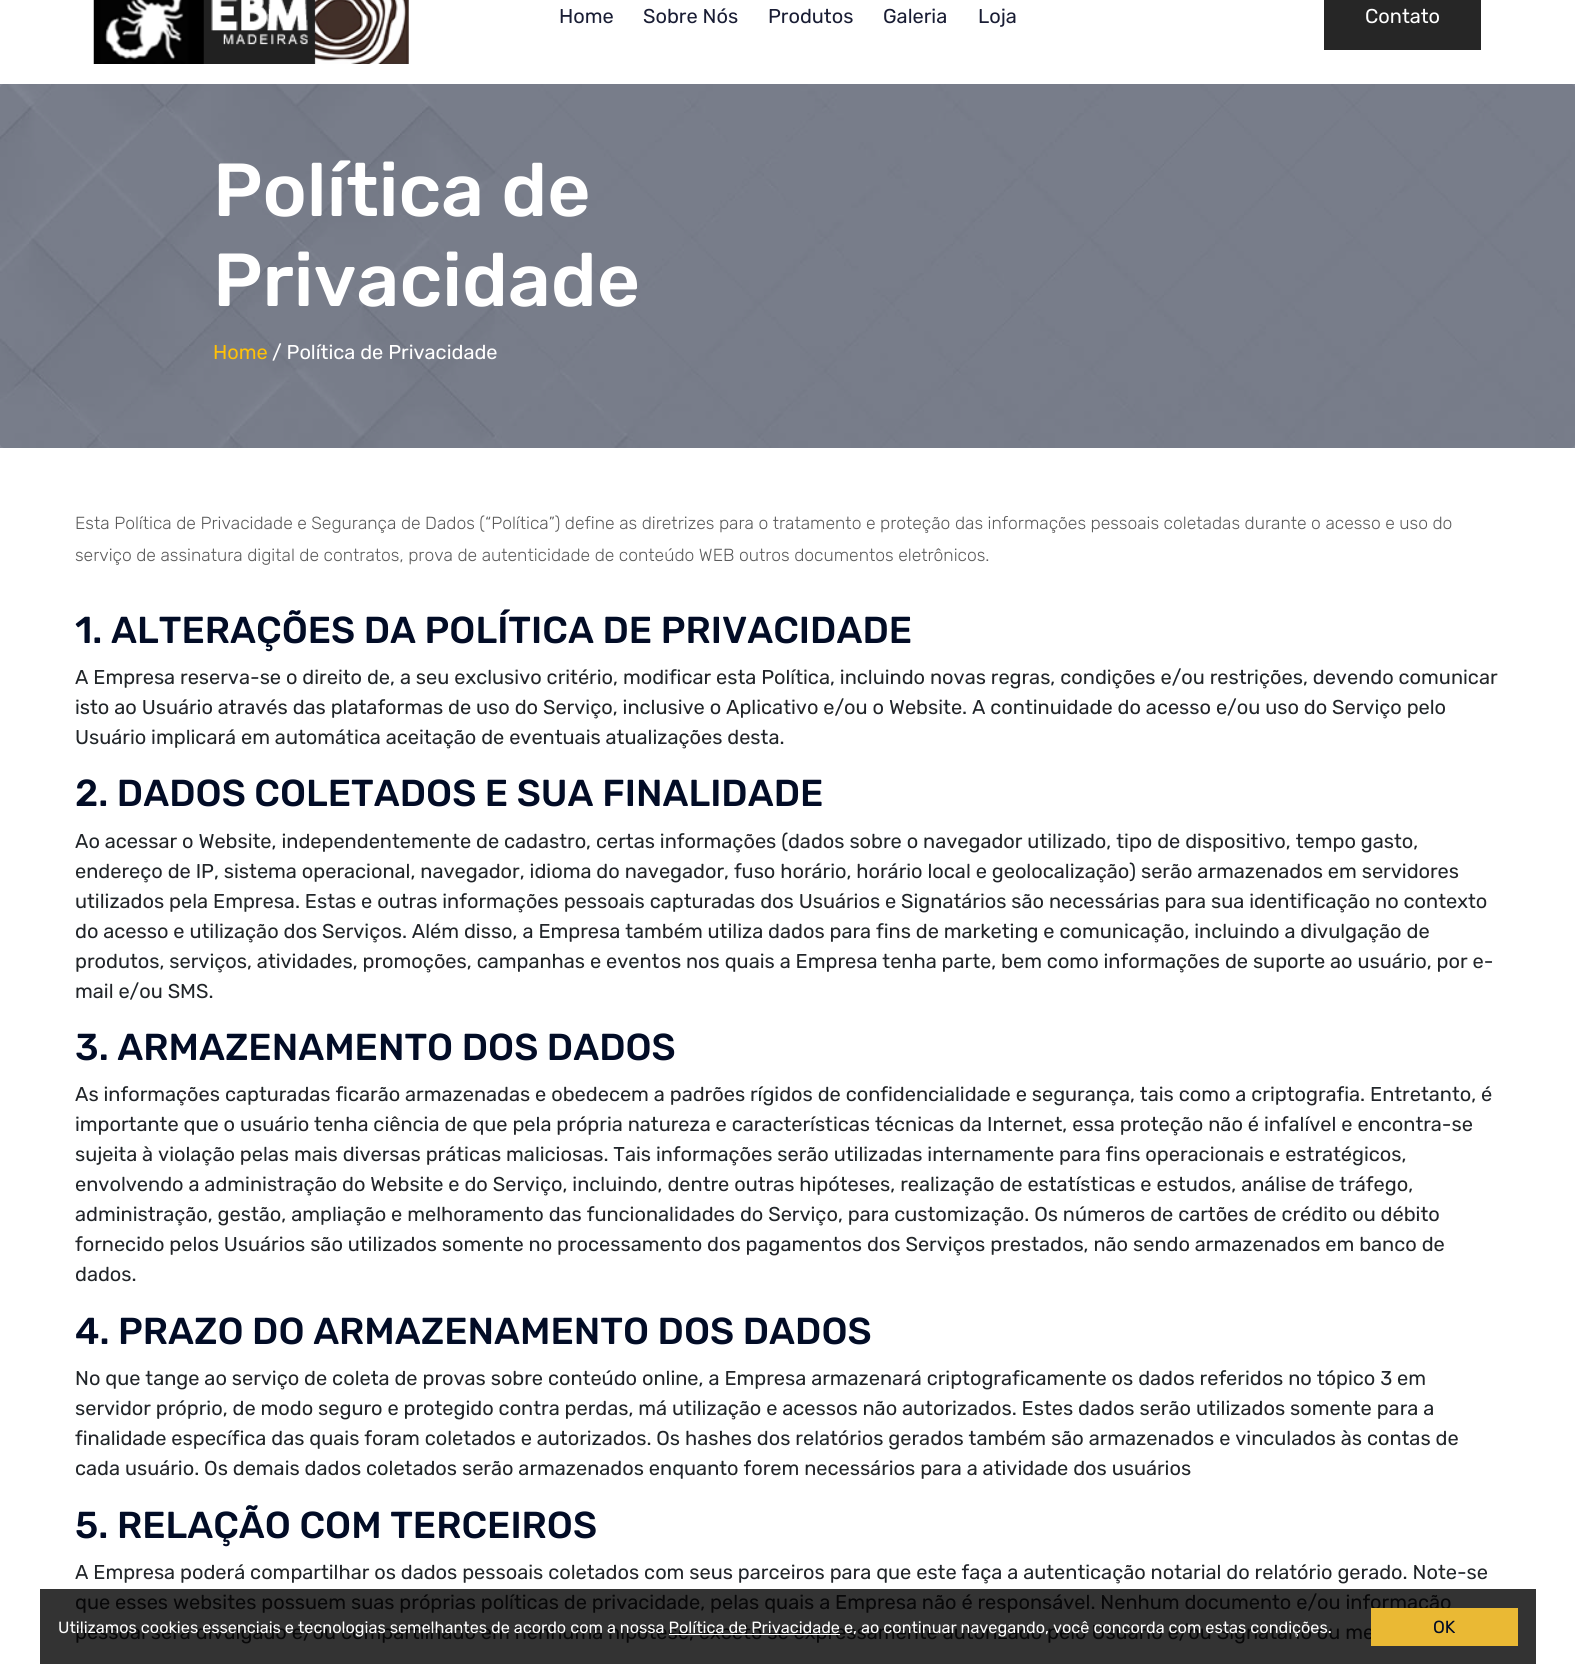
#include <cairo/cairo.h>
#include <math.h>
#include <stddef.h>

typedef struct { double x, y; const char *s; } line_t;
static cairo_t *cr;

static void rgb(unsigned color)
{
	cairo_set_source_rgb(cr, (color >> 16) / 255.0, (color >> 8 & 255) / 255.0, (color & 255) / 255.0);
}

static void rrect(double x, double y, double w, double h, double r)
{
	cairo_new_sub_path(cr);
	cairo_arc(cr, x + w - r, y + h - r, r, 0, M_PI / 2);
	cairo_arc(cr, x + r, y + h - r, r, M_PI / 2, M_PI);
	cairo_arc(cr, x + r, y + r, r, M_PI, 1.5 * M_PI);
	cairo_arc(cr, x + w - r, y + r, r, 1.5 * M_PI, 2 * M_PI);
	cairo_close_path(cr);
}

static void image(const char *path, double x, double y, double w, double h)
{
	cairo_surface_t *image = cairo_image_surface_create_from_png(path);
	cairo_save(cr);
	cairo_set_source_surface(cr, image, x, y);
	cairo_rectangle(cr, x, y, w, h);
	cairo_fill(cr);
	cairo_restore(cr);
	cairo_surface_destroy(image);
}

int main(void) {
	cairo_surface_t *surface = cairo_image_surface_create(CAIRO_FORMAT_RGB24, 1575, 1664);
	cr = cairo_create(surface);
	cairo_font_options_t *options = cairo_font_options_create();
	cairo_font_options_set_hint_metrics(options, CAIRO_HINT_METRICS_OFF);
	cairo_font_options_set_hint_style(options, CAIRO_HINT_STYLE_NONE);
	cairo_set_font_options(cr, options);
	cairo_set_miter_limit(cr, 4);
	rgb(0xffffff);
	cairo_paint(cr);
	rgb(0x333333);
	cairo_rectangle(cr, 40, 1589, 1496, 75);
	cairo_fill(cr);
	rgb(0x818693);
	cairo_rectangle(cr, 0, 84, 1575, 364);
	cairo_fill(cr);
	image("img/1.png", 93, 0, 316, 64);
	rgb(0x262626);
	cairo_rectangle(cr, 1324, 0, 157, 50);
	cairo_fill(cr);
	rgb(0x767c8b);
	rrect(0, 84, 1575, 364, 5);
	cairo_fill(cr);
	image("img/2.png", 0, 84, 1575, 364);
	cairo_select_font_face(cr, "Rubik", CAIRO_FONT_SLANT_NORMAL, CAIRO_FONT_WEIGHT_NORMAL);
	cairo_set_font_size(cr, 20);
	rgb(0x191d34);
	{
		static const line_t items[] = {
			{559, 23, "Home"},
			{643, 23, "Sobre Nós"},
			{768, 23, "Produtos"},
			{883, 23, "Galeria"},
			{978, 23, "Loja"},
		};
		for (size_t i = 0; i < sizeof items / sizeof *items; i++) {
			cairo_move_to(cr, items[i].x, items[i].y);
			cairo_show_text(cr, items[i].s);
		}
	}
	rgb(0xffffff);
	cairo_move_to(cr, 1365, 23);
	cairo_show_text(cr, "Contato");
	cairo_select_font_face(cr, "Rubik Medium", CAIRO_FONT_SLANT_NORMAL, CAIRO_FONT_WEIGHT_NORMAL);
	cairo_set_font_size(cr, 75);
	cairo_move_to(cr, 213, 216);
	cairo_show_text(cr, "Política de");
	cairo_move_to(cr, 213, 306);
	cairo_show_text(cr, "Privacidade");
	cairo_select_font_face(cr, "Rubik", CAIRO_FONT_SLANT_NORMAL, CAIRO_FONT_WEIGHT_NORMAL);
	cairo_set_font_size(cr, 20);
	rgb(0xffc107);
	cairo_move_to(cr, 213, 359);
	cairo_show_text(cr, "Home");
	rgb(0xffffff);
	cairo_move_to(cr, 272, 359);
	cairo_show_text(cr, "/ Política de Privacidade");
	cairo_select_font_face(cr, "Rubik Light", CAIRO_FONT_SLANT_NORMAL, CAIRO_FONT_WEIGHT_NORMAL);
	cairo_set_font_size(cr, 17.5);
	rgb(0x5c5c5c);
	cairo_move_to(cr, 75, 529);
	cairo_show_text(cr, "Esta Política de Privacidade e Segurança de Dados (“Política”) define as diretrizes para o tratamento e proteção das informações pessoais coletadas durante o acesso e uso do");
	cairo_move_to(cr, 75, 561);
	cairo_show_text(cr, "serviço de assinatura digital de contratos, prova de autenticidade de conteúdo WEB outros documentos eletrônicos.");
	cairo_select_font_face(cr, "Rubik Medium", CAIRO_FONT_SLANT_NORMAL, CAIRO_FONT_WEIGHT_NORMAL);
	cairo_set_font_size(cr, 37.5);
	rgb(0x020c26);
	cairo_move_to(cr, 75, 643);
	cairo_show_text(cr, "1. ALTERAÇÕES DA POLÍTICA DE PRIVACIDADE");
	cairo_select_font_face(cr, "Rubik", CAIRO_FONT_SLANT_NORMAL, CAIRO_FONT_WEIGHT_NORMAL);
	cairo_set_font_size(cr, 20);
	rgb(0x212529);
	{
		static const line_t items[] = {
			{75, 684, "A Empresa reserva-se o direito de, a seu exclusivo critério, modificar esta Política, incluindo novas regras, condições e/ou restrições, devendo comunicar"},
			{75, 714, "isto ao Usuário através das plataformas de uso do Serviço, inclusive o Aplicativo e/ou o Website. A continuidade do acesso e/ou uso do Serviço pelo"},
			{75, 744, "Usuário implicará em automática aceitação de eventuais atualizações desta."},
		};
		for (size_t i = 0; i < sizeof items / sizeof *items; i++) {
			cairo_move_to(cr, items[i].x, items[i].y);
			cairo_show_text(cr, items[i].s);
		}
	}
	cairo_select_font_face(cr, "Rubik Medium", CAIRO_FONT_SLANT_NORMAL, CAIRO_FONT_WEIGHT_NORMAL);
	cairo_set_font_size(cr, 37.5);
	rgb(0x020c26);
	cairo_move_to(cr, 75, 806);
	cairo_show_text(cr, "2. DADOS COLETADOS E SUA FINALIDADE");
	cairo_select_font_face(cr, "Rubik", CAIRO_FONT_SLANT_NORMAL, CAIRO_FONT_WEIGHT_NORMAL);
	cairo_set_font_size(cr, 20);
	rgb(0x212529);
	{
		static const line_t items[] = {
			{75, 848, "Ao acessar o Website, independentemente de cadastro, certas informações (dados sobre o navegador utilizado, tipo de dispositivo, tempo gasto,"},
			{75, 878, "endereço de IP, sistema operacional, navegador, idioma do navegador, fuso horário, horário local e geolocalização) serão armazenados em servidores"},
			{75, 908, "utilizados pela Empresa. Estas e outras informações pessoais capturadas dos Usuários e Signatários são necessárias para sua identificação no contexto"},
			{75, 938, "do acesso e utilização dos Serviços. Além disso, a Empresa também utiliza dados para fins de marketing e comunicação, incluindo a divulgação de"},
			{75, 968, "produtos, serviços, atividades, promoções, campanhas e eventos nos quais a Empresa tenha parte, bem como informações de suporte ao usuário, por e-"},
			{75, 998, "mail e/ou SMS."},
		};
		for (size_t i = 0; i < sizeof items / sizeof *items; i++) {
			cairo_move_to(cr, items[i].x, items[i].y);
			cairo_show_text(cr, items[i].s);
		}
	}
	cairo_select_font_face(cr, "Rubik Medium", CAIRO_FONT_SLANT_NORMAL, CAIRO_FONT_WEIGHT_NORMAL);
	cairo_set_font_size(cr, 37.5);
	rgb(0x020c26);
	cairo_move_to(cr, 75, 1060);
	cairo_show_text(cr, "3. ARMAZENAMENTO DOS DADOS");
	cairo_select_font_face(cr, "Rubik", CAIRO_FONT_SLANT_NORMAL, CAIRO_FONT_WEIGHT_NORMAL);
	cairo_set_font_size(cr, 20);
	rgb(0x212529);
	{
		static const line_t items[] = {
			{75, 1101, "As informações capturadas ficarão armazenadas e obedecem a padrões rígidos de confidencialidade e segurança, tais como a criptografia. Entretanto, é"},
			{75, 1131, "importante que o usuário tenha ciência de que pela própria natureza e características técnicas da Internet, essa proteção não é infalível e encontra-se"},
			{75, 1161, "sujeita à violação pelas mais diversas práticas maliciosas. Tais informações serão utilizadas internamente para fins operacionais e estratégicos,"},
			{75, 1191, "envolvendo a administração do Website e do Serviço, incluindo, dentre outras hipóteses, realização de estatísticas e estudos, análise de tráfego,"},
			{75, 1221, "administração, gestão, ampliação e melhoramento das funcionalidades do Serviço, para customização. Os números de cartões de crédito ou débito"},
			{75, 1251, "fornecido pelos Usuários são utilizados somente no processamento dos pagamentos dos Serviços prestados, não sendo armazenados em banco de"},
			{75, 1281, "dados."},
		};
		for (size_t i = 0; i < sizeof items / sizeof *items; i++) {
			cairo_move_to(cr, items[i].x, items[i].y);
			cairo_show_text(cr, items[i].s);
		}
	}
	cairo_select_font_face(cr, "Rubik Medium", CAIRO_FONT_SLANT_NORMAL, CAIRO_FONT_WEIGHT_NORMAL);
	cairo_set_font_size(cr, 37.5);
	rgb(0x020c26);
	cairo_move_to(cr, 75, 1344);
	cairo_show_text(cr, "4. PRAZO DO ARMAZENAMENTO DOS DADOS");
	cairo_select_font_face(cr, "Rubik", CAIRO_FONT_SLANT_NORMAL, CAIRO_FONT_WEIGHT_NORMAL);
	cairo_set_font_size(cr, 20);
	rgb(0x212529);
	{
		static const line_t items[] = {
			{75, 1385, "No que tange ao serviço de coleta de provas sobre conteúdo online, a Empresa armazenará criptograficamente os dados referidos no tópico 3 em"},
			{75, 1415, "servidor próprio, de modo seguro e protegido contra perdas, má utilização e acessos não autorizados. Estes dados serão utilizados somente para a"},
			{75, 1445, "finalidade específica das quais foram coletados e autorizados. Os hashes dos relatórios gerados também são armazenados e vinculados às contas de"},
			{75, 1475, "cada usuário. Os demais dados coletados serão armazenados enquanto forem necessários para a atividade dos usuários"},
		};
		for (size_t i = 0; i < sizeof items / sizeof *items; i++) {
			cairo_move_to(cr, items[i].x, items[i].y);
			cairo_show_text(cr, items[i].s);
		}
	}
	cairo_select_font_face(cr, "Rubik Medium", CAIRO_FONT_SLANT_NORMAL, CAIRO_FONT_WEIGHT_NORMAL);
	cairo_set_font_size(cr, 37.5);
	rgb(0x020c26);
	cairo_move_to(cr, 75, 1538);
	cairo_show_text(cr, "5. RELAÇÃO COM TERCEIROS");
	cairo_select_font_face(cr, "Rubik", CAIRO_FONT_SLANT_NORMAL, CAIRO_FONT_WEIGHT_NORMAL);
	cairo_set_font_size(cr, 20);
	rgb(0x212529);
	cairo_move_to(cr, 75, 1579);
	cairo_show_text(cr, "A Empresa poderá compartilhar os dados pessoais coletados com seus parceiros para que este faça a autenticação notarial do relatório gerado. Note-se");
	rgb(0x070708);
	cairo_move_to(cr, 75, 1609);
	cairo_show_text(cr, "que esses websites possuem suas próprias políticas de privacidade, pelas quais a Empresa não é responsável. Nenhum documento e/ou informação");
	cairo_move_to(cr, 75, 1639);
	cairo_show_text(cr, "pessoal será divulgado e/ou compartilhado em nenhuma hipótese, exceto se expressamente autorizado pelo Usuário e/ou Signatário ou me");
	cairo_set_font_size(cr, 16.25);
	rgb(0xffffff);
	cairo_move_to(cr, 58, 1633);
	cairo_show_text(cr, "Utilizamos cookies essenciais e tecnologias semelhantes de acordo com a nossa Política de Privacidade e, ao continuar navegando, você concorda com estas condições.");
	cairo_rectangle(cr, 669, 1634, 171, 1);
	cairo_fill(cr);
	rgb(0xeab934);
	cairo_rectangle(cr, 1371, 1608, 147, 38);
	cairo_fill(cr);
	cairo_set_font_size(cr, 17.5);
	rgb(0x020c26);
	cairo_move_to(cr, 1433, 1633);
	cairo_show_text(cr, "OK");
	cairo_surface_write_to_png(surface, "page.png");
	cairo_font_options_destroy(options);
	cairo_destroy(cr);
	cairo_surface_destroy(surface);
	return 0;
}
